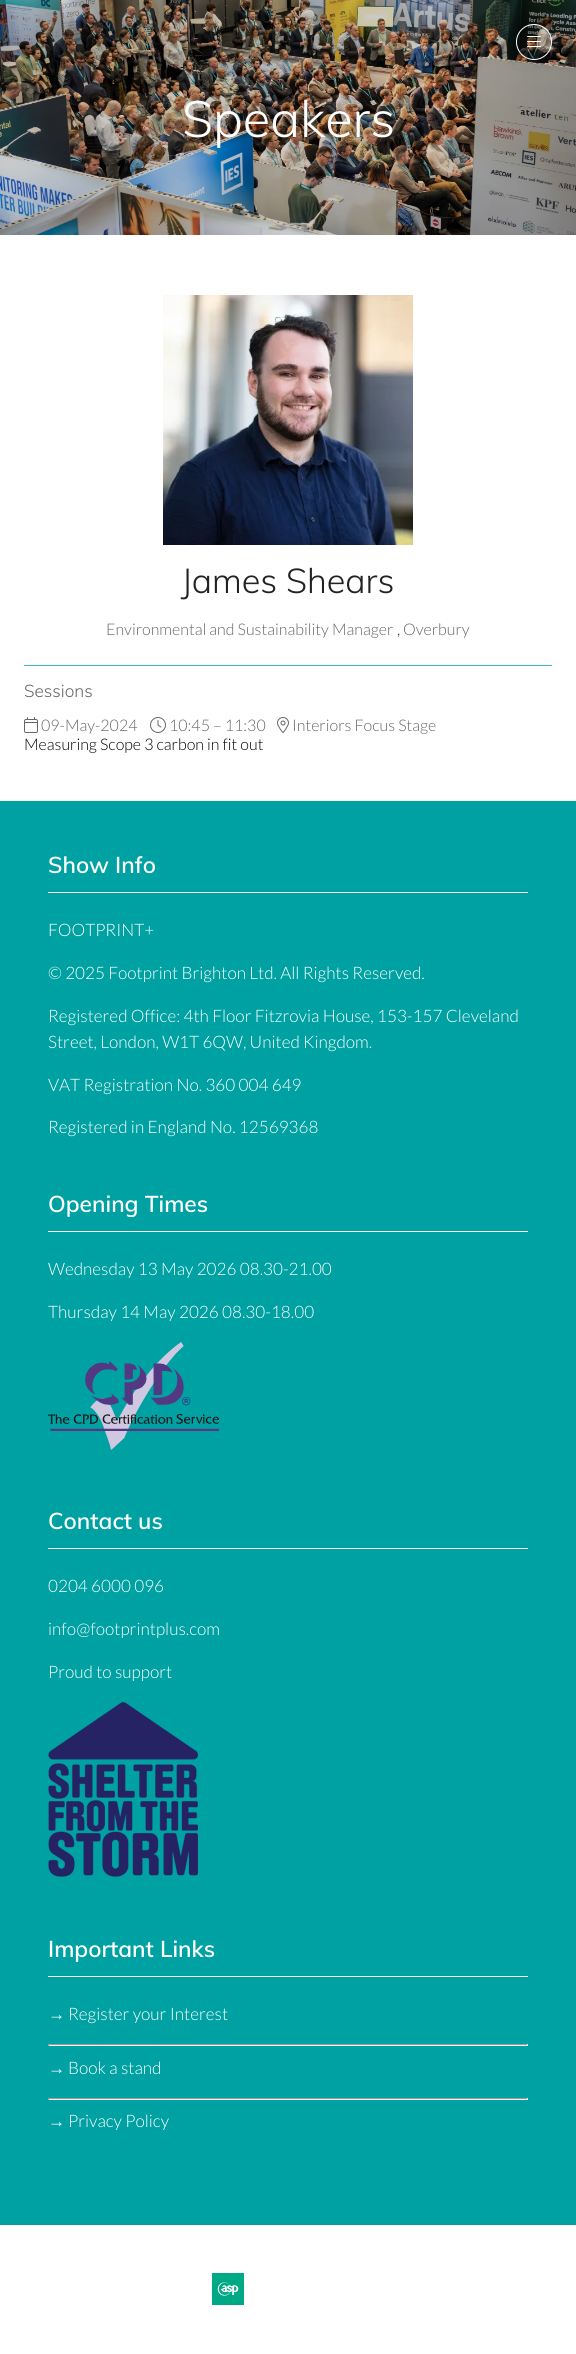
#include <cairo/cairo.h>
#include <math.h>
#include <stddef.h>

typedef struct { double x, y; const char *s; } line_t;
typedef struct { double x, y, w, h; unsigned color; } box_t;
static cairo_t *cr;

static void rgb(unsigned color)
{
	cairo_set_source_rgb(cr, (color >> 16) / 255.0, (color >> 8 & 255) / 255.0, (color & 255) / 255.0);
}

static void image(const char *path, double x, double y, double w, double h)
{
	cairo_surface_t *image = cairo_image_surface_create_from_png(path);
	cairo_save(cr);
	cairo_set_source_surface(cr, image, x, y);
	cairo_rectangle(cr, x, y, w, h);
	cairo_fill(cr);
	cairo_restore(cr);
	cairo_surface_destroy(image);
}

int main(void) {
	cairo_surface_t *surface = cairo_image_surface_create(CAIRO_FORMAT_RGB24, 576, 2354);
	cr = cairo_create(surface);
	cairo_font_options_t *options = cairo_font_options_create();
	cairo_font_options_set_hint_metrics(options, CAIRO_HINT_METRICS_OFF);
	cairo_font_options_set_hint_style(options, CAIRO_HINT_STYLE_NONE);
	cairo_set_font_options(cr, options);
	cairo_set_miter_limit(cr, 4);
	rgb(0xffffff);
	cairo_paint(cr);
	image("img/2.png", 0, 0, 576, 235);
	cairo_arc(cr, 534, 42, 17.5, 0, 2 * M_PI);
	rgb(0xffffff);
	cairo_set_line_width(cr, 1);
	cairo_stroke(cr);
	image("img/1.png", 527, 36, 14, 11);
	image("img/3.png", 163, 295, 250, 250);
	rgb(0x36c0b8);
	cairo_rectangle(cr, 24, 665, 528, 1);
	cairo_fill(cr);
	image("img/4.png", 24, 717, 14, 16);
	image("img/5.png", 150, 717, 16, 16);
	image("img/6.png", 277, 717, 12, 16);
	{
		static const box_t items[] = {
			{0, 801, 576, 1424, 0x00a1a2},
			{48, 892, 480, 1, 0xffffff},
			{48, 1231, 480, 1, 0xffffff},
		};
		for (size_t i = 0; i < sizeof items / sizeof *items; i++) {
			rgb(items[i].color);
			cairo_rectangle(cr, items[i].x, items[i].y, items[i].w, items[i].h);
			cairo_fill(cr);
		}
	}
	image("img/7.png", 48, 1342, 171, 108);
	cairo_rectangle(cr, 48, 1548, 480, 1);
	cairo_fill(cr);
	image("img/8.png", 48, 1702, 150, 177);
	{
		static const box_t items[] = {
			{48, 1976, 480, 1, 0xffffff},
			{48, 2044, 480, 1, 0x9f9f9f},
			{527, 2044, 1, 2, 0xeeeeee},
			{48, 2045, 480, 1, 0xeeeeee},
			{48, 2044, 1, 2, 0x9f9f9f},
			{48, 2098, 480, 1, 0x9f9f9f},
			{527, 2098, 1, 2, 0xeeeeee},
			{48, 2099, 480, 1, 0xeeeeee},
			{48, 2098, 1, 2, 0x9f9f9f},
		};
		for (size_t i = 0; i < sizeof items / sizeof *items; i++) {
			rgb(items[i].color);
			cairo_rectangle(cr, items[i].x, items[i].y, items[i].w, items[i].h);
			cairo_fill(cr);
		}
	}
	image("img/9.png", 212, 2273, 32, 32);
	cairo_select_font_face(cr, "Muli Light", CAIRO_FONT_SLANT_NORMAL, CAIRO_FONT_WEIGHT_NORMAL);
	cairo_set_font_size(cr, 50.5);
	rgb(0xffffff);
	cairo_move_to(cr, 182, 137);
	cairo_show_text(cr, "Speakers");
	cairo_set_font_size(cr, 34.25);
	rgb(0x222222);
	cairo_move_to(cr, 181, 593);
	cairo_show_text(cr, "James Shears");
	cairo_select_font_face(cr, "Lato Light", CAIRO_FONT_SLANT_NORMAL, CAIRO_FONT_WEIGHT_NORMAL);
	cairo_set_font_size(cr, 16);
	rgb(0x666666);
	cairo_move_to(cr, 106, 635);
	cairo_show_text(cr, "Environmental and Sustainability Manager");
	rgb(0x222222);
	cairo_move_to(cr, 397, 635);
	cairo_show_text(cr, ",");
	rgb(0x666666);
	cairo_move_to(cr, 403, 635);
	cairo_show_text(cr, "Overbury");
	cairo_select_font_face(cr, "Muli Light", CAIRO_FONT_SLANT_NORMAL, CAIRO_FONT_WEIGHT_NORMAL);
	cairo_set_font_size(cr, 17.15);
	cairo_move_to(cr, 24, 697);
	cairo_show_text(cr, "Sessions");
	cairo_select_font_face(cr, "Lato Light", CAIRO_FONT_SLANT_NORMAL, CAIRO_FONT_WEIGHT_NORMAL);
	cairo_set_font_size(cr, 16);
	{
		static const line_t items[] = {
			{41, 731, "09-May-2024"},
			{169, 731, "10:45 – 11:30"},
			{292, 731, "Interiors Focus Stage"},
		};
		for (size_t i = 0; i < sizeof items / sizeof *items; i++) {
			cairo_move_to(cr, items[i].x, items[i].y);
			cairo_show_text(cr, items[i].s);
		}
	}
	rgb(0x000000);
	cairo_move_to(cr, 24, 750);
	cairo_show_text(cr, "Measuring Scope 3 carbon in fit out");
	cairo_select_font_face(cr, "Muli SemiBold", CAIRO_FONT_SLANT_NORMAL, CAIRO_FONT_WEIGHT_NORMAL);
	cairo_set_font_size(cr, 22.75);
	rgb(0xffffff);
	cairo_move_to(cr, 48, 873);
	cairo_show_text(cr, "Show Info");
	cairo_select_font_face(cr, "Lato Light", CAIRO_FONT_SLANT_NORMAL, CAIRO_FONT_WEIGHT_NORMAL);
	cairo_set_font_size(cr, 17.15);
	{
		static const line_t items[] = {
			{48, 936, "FOOTPRINT+"},
			{48, 979, "© 2025 Footprint Brighton Ltd. All Rights Reserved."},
			{48, 1022, "Registered Office: 4th Floor Fitzrovia House, 153-157 Cleveland"},
			{48, 1048, "Street, London, W1T 6QW, United Kingdom."},
			{48, 1091, "VAT Registration No. 360 004 649"},
			{48, 1133, "Registered in England No. 12569368"},
		};
		for (size_t i = 0; i < sizeof items / sizeof *items; i++) {
			cairo_move_to(cr, items[i].x, items[i].y);
			cairo_show_text(cr, items[i].s);
		}
	}
	cairo_select_font_face(cr, "Muli SemiBold", CAIRO_FONT_SLANT_NORMAL, CAIRO_FONT_WEIGHT_NORMAL);
	cairo_set_font_size(cr, 22.75);
	cairo_move_to(cr, 48, 1212);
	cairo_show_text(cr, "Opening Times");
	cairo_select_font_face(cr, "Lato Light", CAIRO_FONT_SLANT_NORMAL, CAIRO_FONT_WEIGHT_NORMAL);
	cairo_set_font_size(cr, 17.15);
	cairo_move_to(cr, 48, 1275);
	cairo_show_text(cr, "Wednesday 13 May 2026 08.30-21.00");
	cairo_move_to(cr, 48, 1318);
	cairo_show_text(cr, "Thursday 14 May 2026 08.30-18.00");
	cairo_select_font_face(cr, "Muli SemiBold", CAIRO_FONT_SLANT_NORMAL, CAIRO_FONT_WEIGHT_NORMAL);
	cairo_set_font_size(cr, 22.75);
	cairo_move_to(cr, 48, 1529);
	cairo_show_text(cr, "Contact us");
	cairo_select_font_face(cr, "Lato Light", CAIRO_FONT_SLANT_NORMAL, CAIRO_FONT_WEIGHT_NORMAL);
	cairo_set_font_size(cr, 17.15);
	{
		static const line_t items[] = {
			{48, 1592, "0204 6000 096"},
			{48, 1635, "info@footprintplus.com"},
			{48, 1678, "Proud to support"},
		};
		for (size_t i = 0; i < sizeof items / sizeof *items; i++) {
			cairo_move_to(cr, items[i].x, items[i].y);
			cairo_show_text(cr, items[i].s);
		}
	}
	cairo_select_font_face(cr, "Muli SemiBold", CAIRO_FONT_SLANT_NORMAL, CAIRO_FONT_WEIGHT_NORMAL);
	cairo_set_font_size(cr, 22.75);
	cairo_move_to(cr, 48, 1957);
	cairo_show_text(cr, "Important Links");
	cairo_select_font_face(cr, "Liberation Serif", CAIRO_FONT_SLANT_NORMAL, CAIRO_FONT_WEIGHT_NORMAL);
	cairo_set_font_size(cr, 17.15);
	cairo_move_to(cr, 48, 2020);
	cairo_show_text(cr, "→");
	cairo_select_font_face(cr, "Lato Light", CAIRO_FONT_SLANT_NORMAL, CAIRO_FONT_WEIGHT_NORMAL);
	cairo_move_to(cr, 68, 2020);
	cairo_show_text(cr, "Register your Interest");
	cairo_select_font_face(cr, "Liberation Serif", CAIRO_FONT_SLANT_NORMAL, CAIRO_FONT_WEIGHT_NORMAL);
	cairo_move_to(cr, 48, 2074);
	cairo_show_text(cr, "→");
	cairo_select_font_face(cr, "Lato Light", CAIRO_FONT_SLANT_NORMAL, CAIRO_FONT_WEIGHT_NORMAL);
	cairo_move_to(cr, 68, 2074);
	cairo_show_text(cr, "Book a stand");
	cairo_select_font_face(cr, "Liberation Serif", CAIRO_FONT_SLANT_NORMAL, CAIRO_FONT_WEIGHT_NORMAL);
	cairo_move_to(cr, 48, 2127);
	cairo_show_text(cr, "→");
	cairo_select_font_face(cr, "Lato Light", CAIRO_FONT_SLANT_NORMAL, CAIRO_FONT_WEIGHT_NORMAL);
	cairo_move_to(cr, 68, 2127);
	cairo_show_text(cr, "Privacy Policy");
	cairo_surface_write_to_png(surface, "page.png");
	cairo_font_options_destroy(options);
	cairo_destroy(cr);
	cairo_surface_destroy(surface);
	return 0;
}
